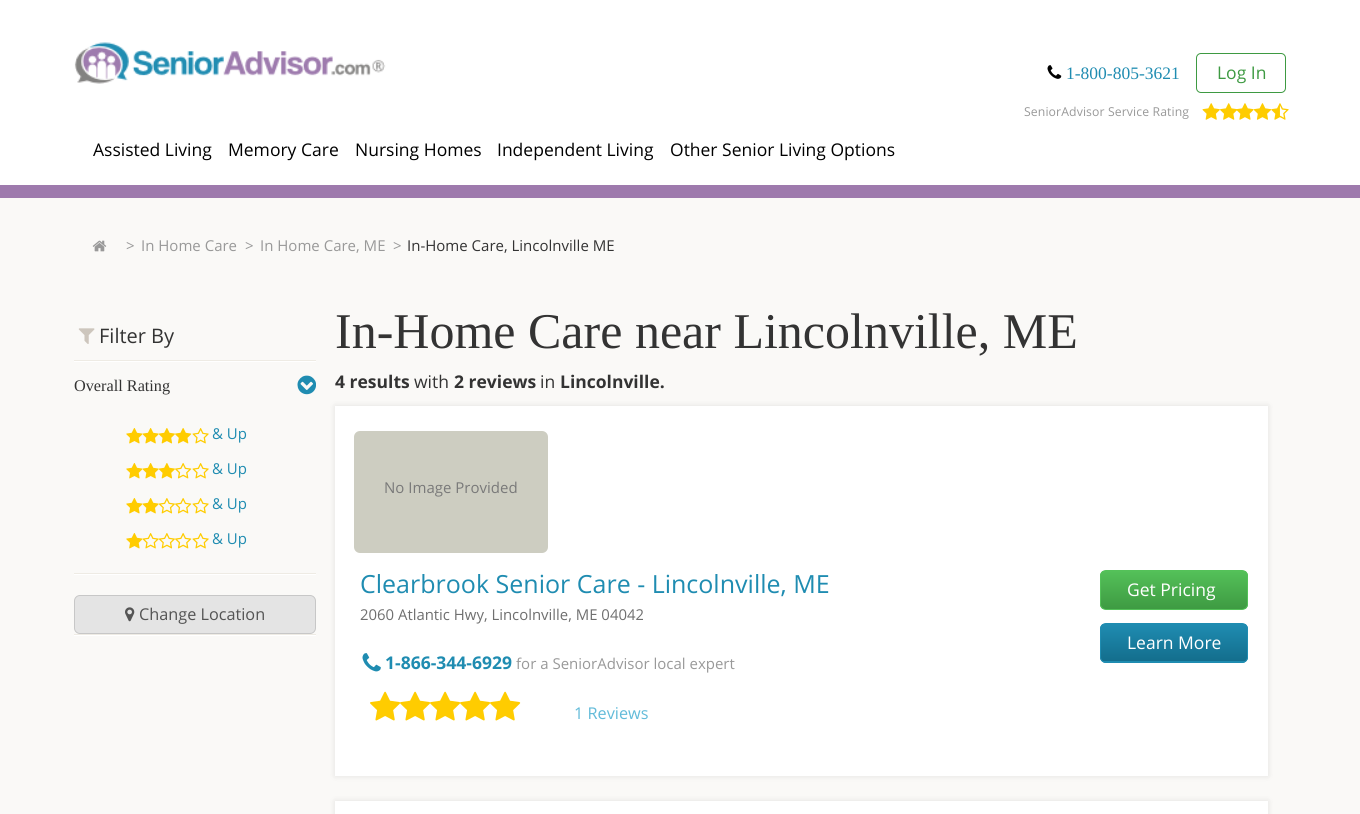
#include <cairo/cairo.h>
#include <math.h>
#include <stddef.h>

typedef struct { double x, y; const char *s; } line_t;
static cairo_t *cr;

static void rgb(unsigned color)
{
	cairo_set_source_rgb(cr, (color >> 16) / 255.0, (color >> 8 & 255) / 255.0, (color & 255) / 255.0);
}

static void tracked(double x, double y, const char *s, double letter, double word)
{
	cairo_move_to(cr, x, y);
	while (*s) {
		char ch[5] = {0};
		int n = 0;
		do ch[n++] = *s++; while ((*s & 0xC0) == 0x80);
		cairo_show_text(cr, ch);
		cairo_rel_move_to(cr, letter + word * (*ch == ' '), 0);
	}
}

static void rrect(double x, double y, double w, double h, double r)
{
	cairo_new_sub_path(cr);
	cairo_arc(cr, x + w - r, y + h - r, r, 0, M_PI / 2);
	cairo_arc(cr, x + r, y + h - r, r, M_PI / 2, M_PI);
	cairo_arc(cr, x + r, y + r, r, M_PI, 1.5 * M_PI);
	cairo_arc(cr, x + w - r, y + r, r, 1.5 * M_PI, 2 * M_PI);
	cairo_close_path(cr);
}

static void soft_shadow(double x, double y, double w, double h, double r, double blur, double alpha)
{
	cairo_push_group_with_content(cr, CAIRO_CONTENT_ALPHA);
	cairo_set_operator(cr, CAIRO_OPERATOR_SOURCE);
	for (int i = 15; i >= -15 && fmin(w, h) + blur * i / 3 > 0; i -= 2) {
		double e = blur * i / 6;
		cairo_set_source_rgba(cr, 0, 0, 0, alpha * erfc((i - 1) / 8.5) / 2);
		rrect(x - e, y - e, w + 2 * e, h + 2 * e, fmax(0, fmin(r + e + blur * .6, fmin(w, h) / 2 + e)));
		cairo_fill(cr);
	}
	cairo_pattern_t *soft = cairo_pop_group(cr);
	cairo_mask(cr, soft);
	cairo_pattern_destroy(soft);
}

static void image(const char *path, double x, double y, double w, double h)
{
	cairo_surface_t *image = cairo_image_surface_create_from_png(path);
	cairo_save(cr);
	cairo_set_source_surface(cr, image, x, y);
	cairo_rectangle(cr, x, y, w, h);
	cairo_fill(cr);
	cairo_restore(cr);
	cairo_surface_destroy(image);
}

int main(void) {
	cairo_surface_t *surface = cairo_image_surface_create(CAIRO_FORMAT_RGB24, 1360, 814);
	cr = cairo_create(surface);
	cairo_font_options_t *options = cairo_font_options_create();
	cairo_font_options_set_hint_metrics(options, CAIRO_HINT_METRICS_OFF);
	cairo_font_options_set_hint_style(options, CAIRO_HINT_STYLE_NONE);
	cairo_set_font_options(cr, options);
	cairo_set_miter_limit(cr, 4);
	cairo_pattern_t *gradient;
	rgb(0xfaf9f7);
	cairo_paint(cr);
	rgb(0xffffff);
	cairo_rectangle(cr, 0, 0, 1360, 185);
	cairo_fill(cr);
	image("img/1.png", 74, 42, 312, 42);
	image("img/2.png", 1047, 65, 15, 14);
	rrect(1196.5, 53.5, 89, 39, 4.5);
	rgb(0x3e9a42);
	cairo_set_line_width(cr, 1);
	cairo_stroke(cr);
	image("img/3.png", 1202, 103, 18, 17);
	image("img/4.png", 1220, 103, 18, 17);
	image("img/5.png", 1236, 103, 18, 17);
	image("img/6.png", 1253, 103, 19, 17);
	image("img/7.png", 1271, 103, 18, 17);
	rgb(0x9e7aad);
	cairo_rectangle(cr, 0, 185, 1360, 13);
	cairo_fill(cr);
	image("img/8.png", 92, 240, 15, 12);
	rgb(0xffffff);
	cairo_rectangle(cr, 74, 361, 242, 1);
	cairo_fill(cr);
	image("img/9.png", 78, 328, 17, 16);
	rgb(0xeeebe4);
	cairo_rectangle(cr, 74, 360, 242, 1);
	cairo_fill(cr);
	rgb(0xffffff);
	cairo_rectangle(cr, 74, 574, 242, 1);
	cairo_fill(cr);
	image("img/10.png", 297, 375, 19, 20);
	image("img/11.png", 126, 428, 17, 16);
	image("img/12.png", 142, 428, 17, 16);
	image("img/13.png", 158, 428, 17, 16);
	image("img/14.png", 175, 428, 17, 16);
	image("img/15.png", 192, 428, 17, 16);
	image("img/11.png", 126, 463, 17, 16);
	image("img/12.png", 142, 463, 17, 16);
	image("img/13.png", 158, 463, 17, 16);
	image("img/16.png", 175, 463, 17, 16);
	image("img/15.png", 192, 463, 17, 16);
	image("img/11.png", 126, 498, 17, 16);
	image("img/12.png", 142, 498, 17, 16);
	image("img/17.png", 158, 498, 17, 16);
	image("img/16.png", 175, 498, 17, 16);
	image("img/15.png", 192, 498, 17, 16);
	image("img/11.png", 126, 533, 17, 16);
	image("img/18.png", 142, 533, 17, 16);
	image("img/17.png", 158, 533, 17, 16);
	image("img/16.png", 175, 533, 17, 16);
	image("img/15.png", 192, 533, 17, 16);
	rgb(0xeeebe4);
	cairo_rectangle(cr, 74, 573, 242, 1);
	cairo_fill(cr);
	rgb(0xffffff);
	cairo_rectangle(cr, 74, 635, 242, 1);
	cairo_fill(cr);
	rgb(0xe4e4e4);
	rrect(74.5, 595.5, 241, 38, 5.5);
	cairo_fill_preserve(cr);
	rgb(0xc7c7c7);
	cairo_stroke(cr);
	image("img/19.png", 125, 607, 10, 15);
	rgb(0xeeebe4);
	cairo_rectangle(cr, 74, 634, 242, 1);
	cairo_fill(cr);
	rgb(0x000000);
	soft_shadow(335, 406, 933, 370, 0, 3, 0.1);
	rgb(0xffffff);
	cairo_rectangle(cr, 335, 406, 933, 370);
	cairo_fill(cr);
	rgb(0xcdcdc1);
	rrect(354, 431, 194, 122, 6);
	cairo_fill(cr);
	cairo_save(cr);
	rrect(1100, 570, 148, 40, 6);
	cairo_clip(cr);
	gradient = cairo_pattern_create_linear(1174, 571, 1174, 609);
	cairo_pattern_add_color_stop_rgba(gradient, 0, 0.329, 0.757, 0.349, 1);
	cairo_pattern_add_color_stop_rgba(gradient, 1, 0.243, 0.604, 0.259, 1);
	cairo_set_source(cr, gradient);
	cairo_pattern_destroy(gradient);
	cairo_rectangle(cr, 1100, 571, 148, 38);
	cairo_fill(cr);
	cairo_restore(cr);
	rrect(1100.5, 570.5, 147, 39, 5.5);
	rgb(0x54c159);
	cairo_stroke(cr);
	cairo_save(cr);
	rrect(1100, 623, 148, 40, 6);
	cairo_clip(cr);
	gradient = cairo_pattern_create_linear(1174, 624, 1174, 661);
	cairo_pattern_add_color_stop_rgba(gradient, 0, 0.122, 0.549, 0.694, 1);
	cairo_pattern_add_color_stop_rgba(gradient, 1, 0.075, 0.431, 0.553, 1);
	cairo_set_source(cr, gradient);
	cairo_pattern_destroy(gradient);
	cairo_rectangle(cr, 1100, 624, 148, 37);
	cairo_fill(cr);
	gradient = cairo_pattern_create_linear(1174, 661, 1174, 699);
	cairo_pattern_add_color_stop_rgba(gradient, 0, 0.122, 0.549, 0.694, 1);
	cairo_pattern_add_color_stop_rgba(gradient, 1, 0.075, 0.431, 0.553, 1);
	cairo_set_source(cr, gradient);
	cairo_pattern_destroy(gradient);
	cairo_rectangle(cr, 1100, 661, 148, 2);
	cairo_fill(cr);
	cairo_restore(cr);
	rrect(1100.5, 623.5, 147, 39, 5.5);
	rgb(0x1f8cb1);
	cairo_stroke(cr);
	image("img/20.png", 362, 653, 19, 19);
	image("img/21.png", 370, 691, 31, 30);
	image("img/22.png", 400, 691, 31, 30);
	image("img/22.png", 430, 691, 31, 30);
	image("img/22.png", 460, 691, 31, 30);
	image("img/22.png", 490, 691, 31, 30);
	rgb(0x000000);
	soft_shadow(335, 801, 933, 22, 0, 3, 0.1);
	rgb(0xffffff);
	cairo_rectangle(cr, 335, 801, 933, 13);
	cairo_fill(cr);
	cairo_select_font_face(cr, "Liberation Serif", CAIRO_FONT_SLANT_NORMAL, CAIRO_FONT_WEIGHT_NORMAL);
	cairo_set_font_size(cr, 17.5);
	rgb(0x1f8cb1);
	cairo_move_to(cr, 1066, 79);
	cairo_show_text(cr, "1-800-805-3621");
	cairo_select_font_face(cr, "Open Sans", CAIRO_FONT_SLANT_NORMAL, CAIRO_FONT_WEIGHT_NORMAL);
	rgb(0x3e9a42);
	cairo_move_to(cr, 1217, 79);
	cairo_show_text(cr, "Log In");
	cairo_set_font_size(cr, 12.25);
	rgb(0x999999);
	tracked(1024, 116, "SeniorAdvisor Service Rating", 0.1, 0);
	cairo_set_font_size(cr, 17.5);
	rgb(0x000000);
	{
		static const line_t items[] = {
			{93, 156, "Assisted Living"},
			{228, 156, "Memory Care"},
			{355, 156, "Nursing Homes"},
			{497, 156, "Independent Living"},
			{670, 156, "Other Senior Living Options"},
		};
		for (size_t i = 0; i < sizeof items / sizeof *items; i++) {
			cairo_move_to(cr, items[i].x, items[i].y);
			cairo_show_text(cr, items[i].s);
		}
	}
	cairo_set_font_size(cr, 15);
	rgb(0x999999);
	{
		static const line_t items[] = {
			{126, 251, ">"},
			{141, 251, "In Home Care"},
			{245, 251, ">"},
			{260, 251, "In Home Care, ME"},
			{393, 251, ">"},
		};
		for (size_t i = 0; i < sizeof items / sizeof *items; i++) {
			cairo_move_to(cr, items[i].x, items[i].y);
			cairo_show_text(cr, items[i].s);
		}
	}
	rgb(0x333333);
	cairo_move_to(cr, 407, 251);
	cairo_show_text(cr, "In-Home Care, Lincolnville ME");
	cairo_set_font_size(cr, 20);
	cairo_move_to(cr, 99, 343);
	cairo_show_text(cr, "Filter By");
	cairo_select_font_face(cr, "Liberation Serif", CAIRO_FONT_SLANT_NORMAL, CAIRO_FONT_WEIGHT_NORMAL);
	cairo_set_font_size(cr, 16.25);
	cairo_move_to(cr, 74, 391);
	cairo_show_text(cr, "Overall Rating");
	cairo_select_font_face(cr, "Open Sans", CAIRO_FONT_SLANT_NORMAL, CAIRO_FONT_WEIGHT_NORMAL);
	cairo_set_font_size(cr, 15);
	rgb(0x1f8cb1);
	{
		static const line_t items[] = {
			{212, 439, "& Up"},
			{212, 474, "& Up"},
			{212, 509, "& Up"},
			{212, 544, "& Up"},
		};
		for (size_t i = 0; i < sizeof items / sizeof *items; i++) {
			cairo_move_to(cr, items[i].x, items[i].y);
			cairo_show_text(cr, items[i].s);
		}
	}
	cairo_set_font_size(cr, 16.25);
	rgb(0x545454);
	cairo_move_to(cr, 139, 620);
	cairo_show_text(cr, "Change Location");
	cairo_select_font_face(cr, "Liberation Serif", CAIRO_FONT_SLANT_NORMAL, CAIRO_FONT_WEIGHT_NORMAL);
	cairo_set_font_size(cr, 50);
	rgb(0x333333);
	cairo_move_to(cr, 335, 348);
	cairo_show_text(cr, "In-Home Care near Lincolnville, ME");
	cairo_select_font_face(cr, "Open Sans", CAIRO_FONT_SLANT_NORMAL, CAIRO_FONT_WEIGHT_BOLD);
	cairo_set_font_size(cr, 17.5);
	cairo_move_to(cr, 335, 388);
	cairo_show_text(cr, "4 results");
	cairo_select_font_face(cr, "Open Sans", CAIRO_FONT_SLANT_NORMAL, CAIRO_FONT_WEIGHT_NORMAL);
	cairo_move_to(cr, 414, 388);
	cairo_show_text(cr, "with");
	cairo_select_font_face(cr, "Open Sans", CAIRO_FONT_SLANT_NORMAL, CAIRO_FONT_WEIGHT_BOLD);
	cairo_move_to(cr, 454, 388);
	cairo_show_text(cr, "2 reviews");
	cairo_select_font_face(cr, "Open Sans", CAIRO_FONT_SLANT_NORMAL, CAIRO_FONT_WEIGHT_NORMAL);
	cairo_move_to(cr, 540, 388);
	cairo_show_text(cr, "in");
	cairo_select_font_face(cr, "Open Sans", CAIRO_FONT_SLANT_NORMAL, CAIRO_FONT_WEIGHT_BOLD);
	cairo_move_to(cr, 560, 388);
	cairo_show_text(cr, "Lincolnville.");
	cairo_select_font_face(cr, "Open Sans", CAIRO_FONT_SLANT_NORMAL, CAIRO_FONT_WEIGHT_NORMAL);
	cairo_set_font_size(cr, 15);
	rgb(0x797979);
	cairo_move_to(cr, 384, 493);
	cairo_show_text(cr, "No Image Provided");
	cairo_set_font_size(cr, 25);
	rgb(0x1f8cb1);
	cairo_move_to(cr, 360, 593);
	cairo_show_text(cr, "Clearbrook Senior Care - Lincolnville, ME");
	cairo_set_font_size(cr, 14.9);
	rgb(0x6f6f6f);
	cairo_move_to(cr, 360, 620);
	cairo_show_text(cr, "2060 Atlantic Hwy, Lincolnville, ME 04042");
	cairo_set_font_size(cr, 17.5);
	rgb(0xffffff);
	cairo_move_to(cr, 1127, 596);
	cairo_show_text(cr, "Get Pricing");
	cairo_move_to(cr, 1127, 649);
	cairo_show_text(cr, "Learn More");
	cairo_select_font_face(cr, "Open Sans", CAIRO_FONT_SLANT_NORMAL, CAIRO_FONT_WEIGHT_BOLD);
	rgb(0x1f8cb1);
	cairo_move_to(cr, 385, 669);
	cairo_show_text(cr, "1-866-344-6929");
	cairo_select_font_face(cr, "Open Sans", CAIRO_FONT_SLANT_NORMAL, CAIRO_FONT_WEIGHT_NORMAL);
	cairo_set_font_size(cr, 15);
	rgb(0x999999);
	cairo_move_to(cr, 516, 669);
	cairo_show_text(cr, "for a SeniorAdvisor local expert");
	cairo_set_font_size(cr, 16.25);
	rgb(0x62bbd9);
	cairo_move_to(cr, 574, 719);
	cairo_show_text(cr, "1 Reviews");
	cairo_surface_write_to_png(surface, "page.png");
	cairo_font_options_destroy(options);
	cairo_destroy(cr);
	cairo_surface_destroy(surface);
	return 0;
}
